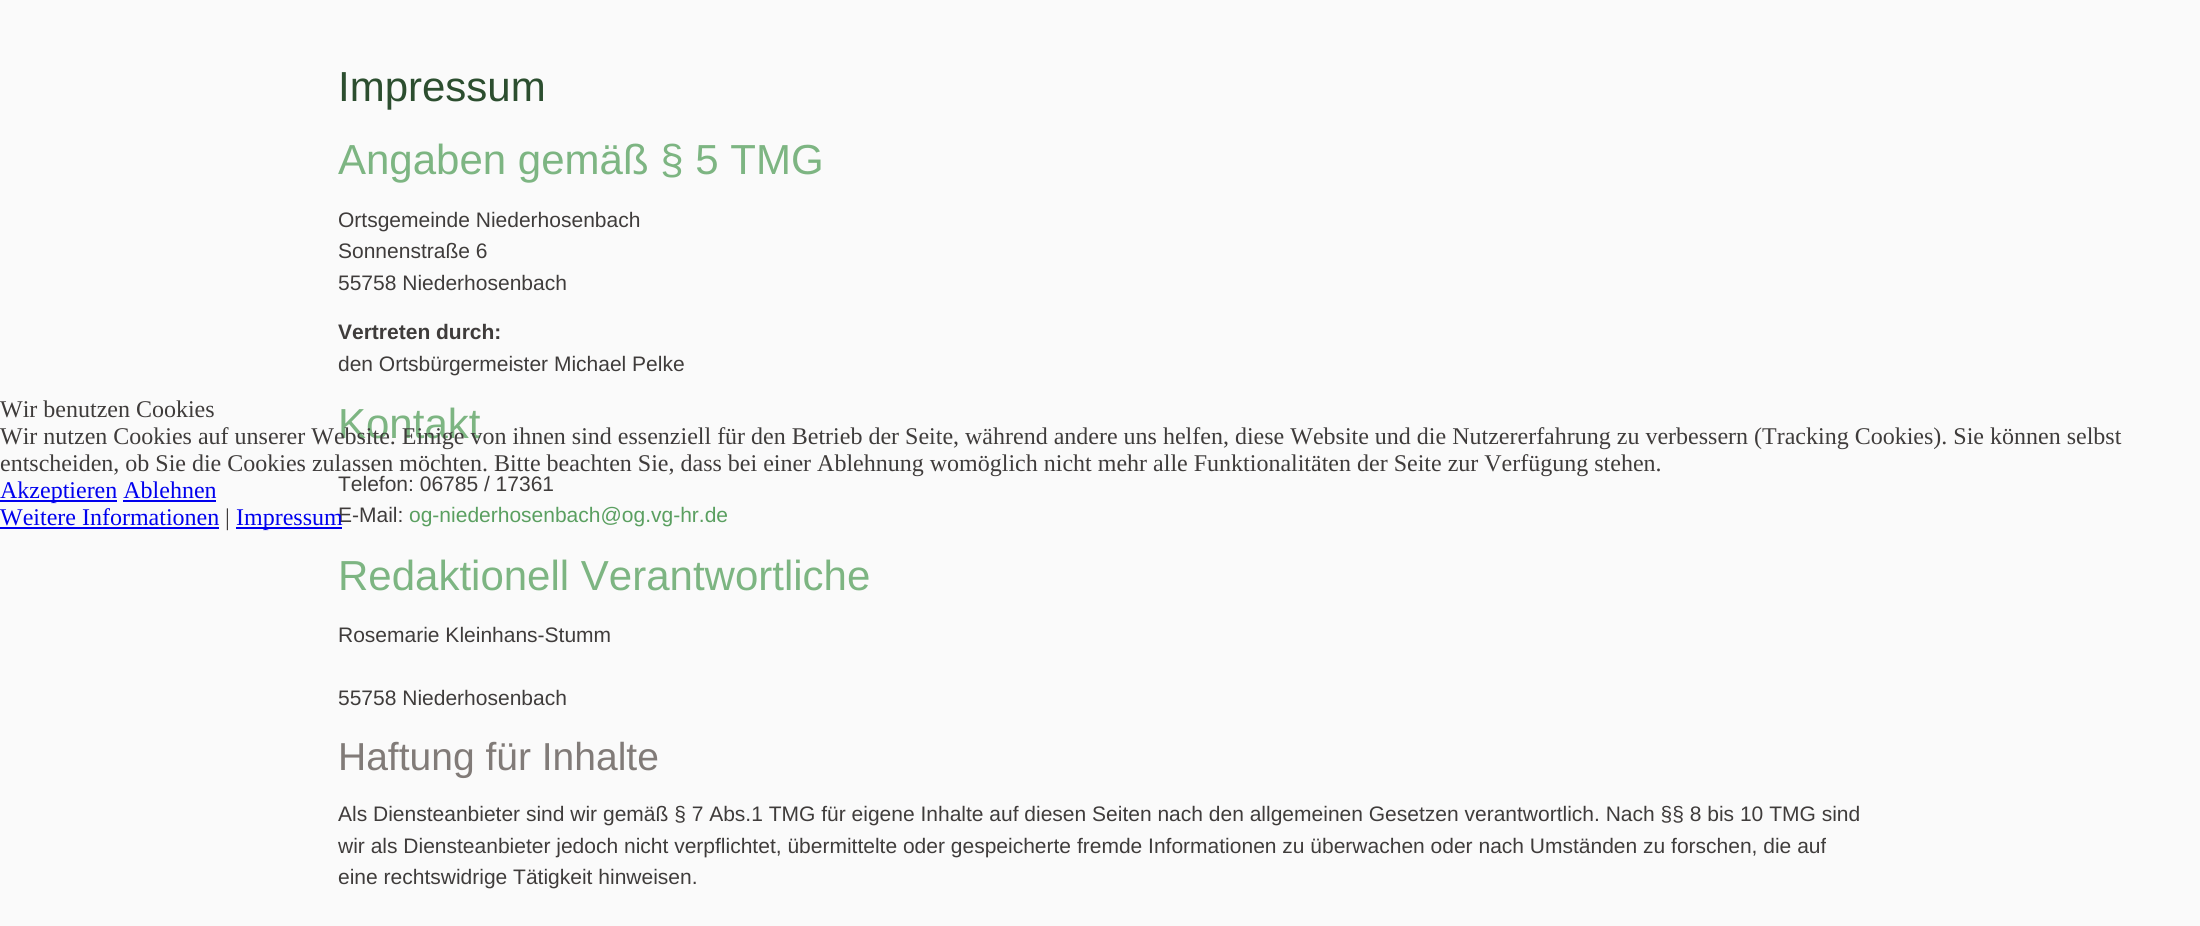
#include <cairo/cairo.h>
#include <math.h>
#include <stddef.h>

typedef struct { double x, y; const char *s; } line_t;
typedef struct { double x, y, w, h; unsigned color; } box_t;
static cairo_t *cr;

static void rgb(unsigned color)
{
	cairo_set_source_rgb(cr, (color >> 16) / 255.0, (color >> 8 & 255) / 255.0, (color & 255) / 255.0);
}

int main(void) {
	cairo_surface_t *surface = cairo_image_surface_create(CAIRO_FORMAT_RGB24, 2200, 926);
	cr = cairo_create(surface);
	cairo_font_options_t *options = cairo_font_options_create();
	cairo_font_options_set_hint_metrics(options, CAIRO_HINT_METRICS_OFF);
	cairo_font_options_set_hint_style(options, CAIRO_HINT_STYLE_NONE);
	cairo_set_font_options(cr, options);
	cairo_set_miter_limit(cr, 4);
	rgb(0xfafafa);
	cairo_paint(cr);
	{
		static const box_t items[] = {
			{0, 500, 117, 2, 0x0000ee},
			{123, 500, 93, 2, 0x0000ee},
			{0, 527, 219, 2, 0x0000ee},
			{236, 527, 106, 2, 0x0000ee},
		};
		for (size_t i = 0; i < sizeof items / sizeof *items; i++) {
			rgb(items[i].color);
			cairo_rectangle(cr, items[i].x, items[i].y, items[i].w, items[i].h);
			cairo_fill(cr);
		}
	}
	cairo_select_font_face(cr, "Liberation Sans", CAIRO_FONT_SLANT_NORMAL, CAIRO_FONT_WEIGHT_NORMAL);
	cairo_set_font_size(cr, 42);
	rgb(0x2c4e2f);
	cairo_move_to(cr, 338, 101);
	cairo_show_text(cr, "Impressum");
	rgb(0x7db582);
	cairo_move_to(cr, 338, 174);
	cairo_show_text(cr, "Angaben gemäß § 5 TMG");
	cairo_set_font_size(cr, 21);
	rgb(0x3f3c3b);
	{
		static const line_t items[] = {
			{338, 227, "Ortsgemeinde Niederhosenbach"},
			{338, 258, "Sonnenstraße 6"},
			{338, 290, "55758 Niederhosenbach"},
		};
		for (size_t i = 0; i < sizeof items / sizeof *items; i++) {
			cairo_move_to(cr, items[i].x, items[i].y);
			cairo_show_text(cr, items[i].s);
		}
	}
	cairo_select_font_face(cr, "Liberation Sans", CAIRO_FONT_SLANT_NORMAL, CAIRO_FONT_WEIGHT_BOLD);
	cairo_move_to(cr, 338, 339);
	cairo_show_text(cr, "Vertreten durch:");
	cairo_select_font_face(cr, "Liberation Sans", CAIRO_FONT_SLANT_NORMAL, CAIRO_FONT_WEIGHT_NORMAL);
	cairo_move_to(cr, 338, 371);
	cairo_show_text(cr, "den Ortsbürgermeister Michael Pelke");
	cairo_set_font_size(cr, 42);
	rgb(0x7db582);
	cairo_move_to(cr, 338, 438);
	cairo_show_text(cr, "Kontakt");
	cairo_set_font_size(cr, 21);
	rgb(0x3f3c3b);
	cairo_move_to(cr, 338, 491);
	cairo_show_text(cr, "Telefon: 06785 / 17361");
	cairo_move_to(cr, 338, 522);
	cairo_show_text(cr, "E-Mail:");
	rgb(0x5a9f60);
	cairo_move_to(cr, 409, 522);
	cairo_show_text(cr, "og-niederhosenbach@og.vg-hr.de");
	cairo_set_font_size(cr, 42);
	rgb(0x7db582);
	cairo_move_to(cr, 338, 590);
	cairo_show_text(cr, "Redaktionell Verantwortliche");
	cairo_set_font_size(cr, 21);
	rgb(0x3f3c3b);
	cairo_move_to(cr, 338, 642);
	cairo_show_text(cr, "Rosemarie Kleinhans-Stumm");
	cairo_move_to(cr, 338, 705);
	cairo_show_text(cr, "55758 Niederhosenbach");
	cairo_set_font_size(cr, 39);
	rgb(0x817b78);
	cairo_move_to(cr, 338, 770);
	cairo_show_text(cr, "Haftung für Inhalte");
	cairo_set_font_size(cr, 21);
	rgb(0x3f3c3b);
	{
		static const line_t items[] = {
			{338, 821, "Als Diensteanbieter sind wir gemäß § 7 Abs.1 TMG für eigene Inhalte auf diesen Seiten nach den allgemeinen Gesetzen verantwortlich. Nach §§ 8 bis 10 TMG sind"},
			{338, 853, "wir als Diensteanbieter jedoch nicht verpflichtet, übermittelte oder gespeicherte fremde Informationen zu überwachen oder nach Umständen zu forschen, die auf"},
			{338, 884, "eine rechtswidrige Tätigkeit hinweisen."},
		};
		for (size_t i = 0; i < sizeof items / sizeof *items; i++) {
			cairo_move_to(cr, items[i].x, items[i].y);
			cairo_show_text(cr, items[i].s);
		}
	}
	cairo_select_font_face(cr, "Liberation Serif", CAIRO_FONT_SLANT_NORMAL, CAIRO_FONT_WEIGHT_NORMAL);
	cairo_set_font_size(cr, 24);
	{
		static const line_t items[] = {
			{0, 417, "Wir benutzen Cookies"},
			{0, 444, "Wir nutzen Cookies auf unserer Website. Einige von ihnen sind essenziell für den Betrieb der Seite, während andere uns helfen, diese Website und die Nutzererfahrung zu verbessern (Tracking Cookies). Sie können selbst"},
			{0, 471, "entscheiden, ob Sie die Cookies zulassen möchten. Bitte beachten Sie, dass bei einer Ablehnung womöglich nicht mehr alle Funktionalitäten der Seite zur Verfügung stehen."},
		};
		for (size_t i = 0; i < sizeof items / sizeof *items; i++) {
			cairo_move_to(cr, items[i].x, items[i].y);
			cairo_show_text(cr, items[i].s);
		}
	}
	rgb(0x0000ee);
	cairo_move_to(cr, 0, 498);
	cairo_show_text(cr, "Akzeptieren Ablehnen");
	cairo_move_to(cr, 0, 525);
	cairo_show_text(cr, "Weitere Informationen");
	rgb(0x3f3c3b);
	cairo_move_to(cr, 225, 525);
	cairo_show_text(cr, "|");
	rgb(0x0000ee);
	cairo_move_to(cr, 236, 525);
	cairo_show_text(cr, "Impressum");
	cairo_surface_write_to_png(surface, "page.png");
	cairo_font_options_destroy(options);
	cairo_destroy(cr);
	cairo_surface_destroy(surface);
	return 0;
}
